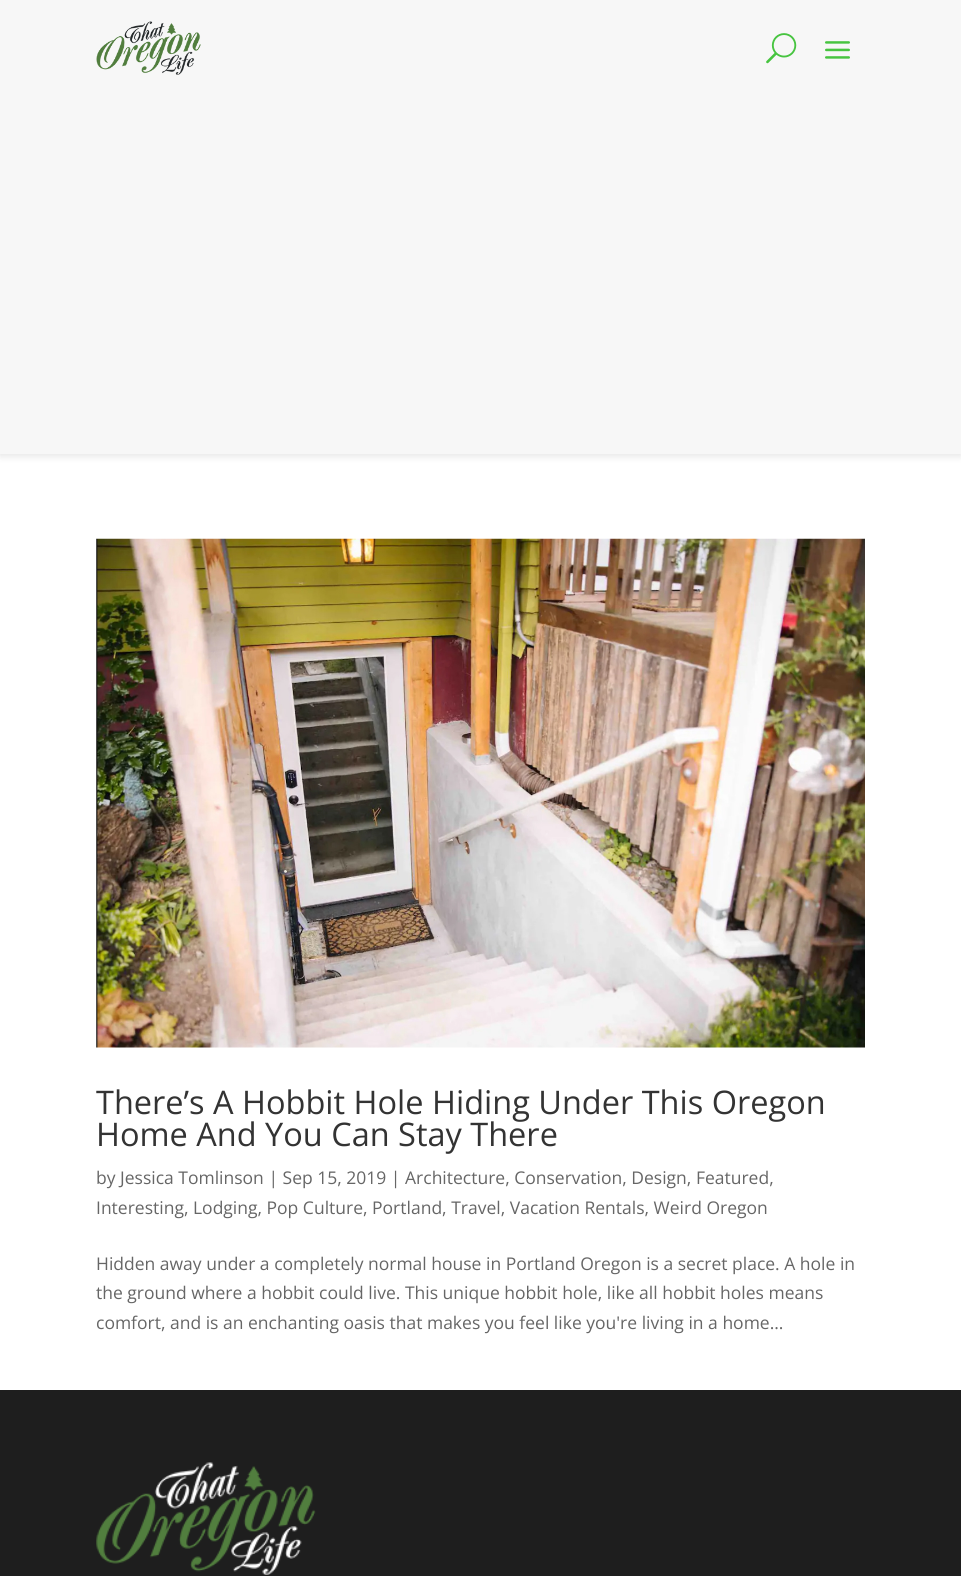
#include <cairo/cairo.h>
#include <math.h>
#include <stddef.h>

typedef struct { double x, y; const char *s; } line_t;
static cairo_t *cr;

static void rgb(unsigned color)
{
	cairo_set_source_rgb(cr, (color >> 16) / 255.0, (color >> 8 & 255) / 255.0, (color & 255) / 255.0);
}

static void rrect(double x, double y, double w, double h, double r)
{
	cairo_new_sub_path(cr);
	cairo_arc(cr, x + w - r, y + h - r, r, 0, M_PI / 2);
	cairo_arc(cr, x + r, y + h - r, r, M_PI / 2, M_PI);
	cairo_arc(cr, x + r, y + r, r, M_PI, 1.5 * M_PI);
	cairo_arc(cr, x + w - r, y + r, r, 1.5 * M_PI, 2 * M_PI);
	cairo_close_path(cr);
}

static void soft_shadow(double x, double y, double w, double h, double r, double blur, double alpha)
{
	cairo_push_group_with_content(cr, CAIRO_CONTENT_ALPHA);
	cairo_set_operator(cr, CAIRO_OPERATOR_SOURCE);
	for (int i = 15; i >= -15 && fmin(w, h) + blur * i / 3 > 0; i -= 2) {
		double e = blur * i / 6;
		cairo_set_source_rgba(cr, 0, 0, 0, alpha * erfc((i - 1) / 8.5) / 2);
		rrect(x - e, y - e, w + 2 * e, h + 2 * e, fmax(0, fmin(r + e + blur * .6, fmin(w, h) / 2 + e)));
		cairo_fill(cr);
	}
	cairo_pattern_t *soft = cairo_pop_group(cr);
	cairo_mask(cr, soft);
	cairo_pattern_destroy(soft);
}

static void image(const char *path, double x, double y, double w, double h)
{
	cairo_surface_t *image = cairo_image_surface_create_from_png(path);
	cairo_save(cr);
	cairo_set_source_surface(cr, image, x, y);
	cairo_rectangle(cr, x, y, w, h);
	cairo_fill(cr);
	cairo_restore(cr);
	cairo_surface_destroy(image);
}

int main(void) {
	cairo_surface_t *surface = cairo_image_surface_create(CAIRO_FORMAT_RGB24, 961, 1576);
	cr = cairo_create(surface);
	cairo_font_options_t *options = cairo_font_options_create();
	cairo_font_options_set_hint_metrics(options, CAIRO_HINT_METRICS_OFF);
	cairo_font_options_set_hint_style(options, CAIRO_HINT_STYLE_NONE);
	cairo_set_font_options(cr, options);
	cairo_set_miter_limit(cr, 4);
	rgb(0xffffff);
	cairo_paint(cr);
	rgb(0x000000);
	soft_shadow(0, 3, 961, 453, 0, 4, 0.11);
	rgb(0xf7f7f7);
	cairo_rectangle(cr, 0, 0, 961, 454);
	cairo_fill(cr);
	image("img/1.png", 96, 21, 105, 54);
	image("img/2.png", 766, 33, 31, 31);
	image("img/3.png", 825, 41, 25, 18);
	image("img/4.png", 96, 538, 769, 510);
	rgb(0x1e1e1e);
	cairo_rectangle(cr, 0, 1390, 961, 186);
	cairo_fill(cr);
	image("img/5.png", 96, 1462, 220, 113);
	cairo_select_font_face(cr, "Open Sans", CAIRO_FONT_SLANT_NORMAL, CAIRO_FONT_WEIGHT_NORMAL);
	cairo_set_font_size(cr, 32.5);
	rgb(0x333333);
	cairo_move_to(cr, 96, 1114);
	cairo_show_text(cr, "There’s A Hobbit Hole Hiding Under This Oregon");
	cairo_move_to(cr, 96, 1146);
	cairo_show_text(cr, "Home And You Can Stay There");
	cairo_set_font_size(cr, 17.5);
	rgb(0x666666);
	{
		static const line_t items[] = {
			{96, 1184, "by Jessica Tomlinson | Sep 15, 2019 | Architecture, Conservation, Design, Featured,"},
			{96, 1214, "Interesting, Lodging, Pop Culture, Portland, Travel, Vacation Rentals, Weird Oregon"},
			{96, 1270, "Hidden away under a completely normal house in Portland Oregon is a secret place. A hole in"},
			{96, 1299, "the ground where a hobbit could live. This unique hobbit hole, like all hobbit holes means"},
			{96, 1329, "comfort, and is an enchanting oasis that makes you feel like you're living in a home..."},
		};
		for (size_t i = 0; i < sizeof items / sizeof *items; i++) {
			cairo_move_to(cr, items[i].x, items[i].y);
			cairo_show_text(cr, items[i].s);
		}
	}
	cairo_surface_write_to_png(surface, "page.png");
	cairo_font_options_destroy(options);
	cairo_destroy(cr);
	cairo_surface_destroy(surface);
	return 0;
}
